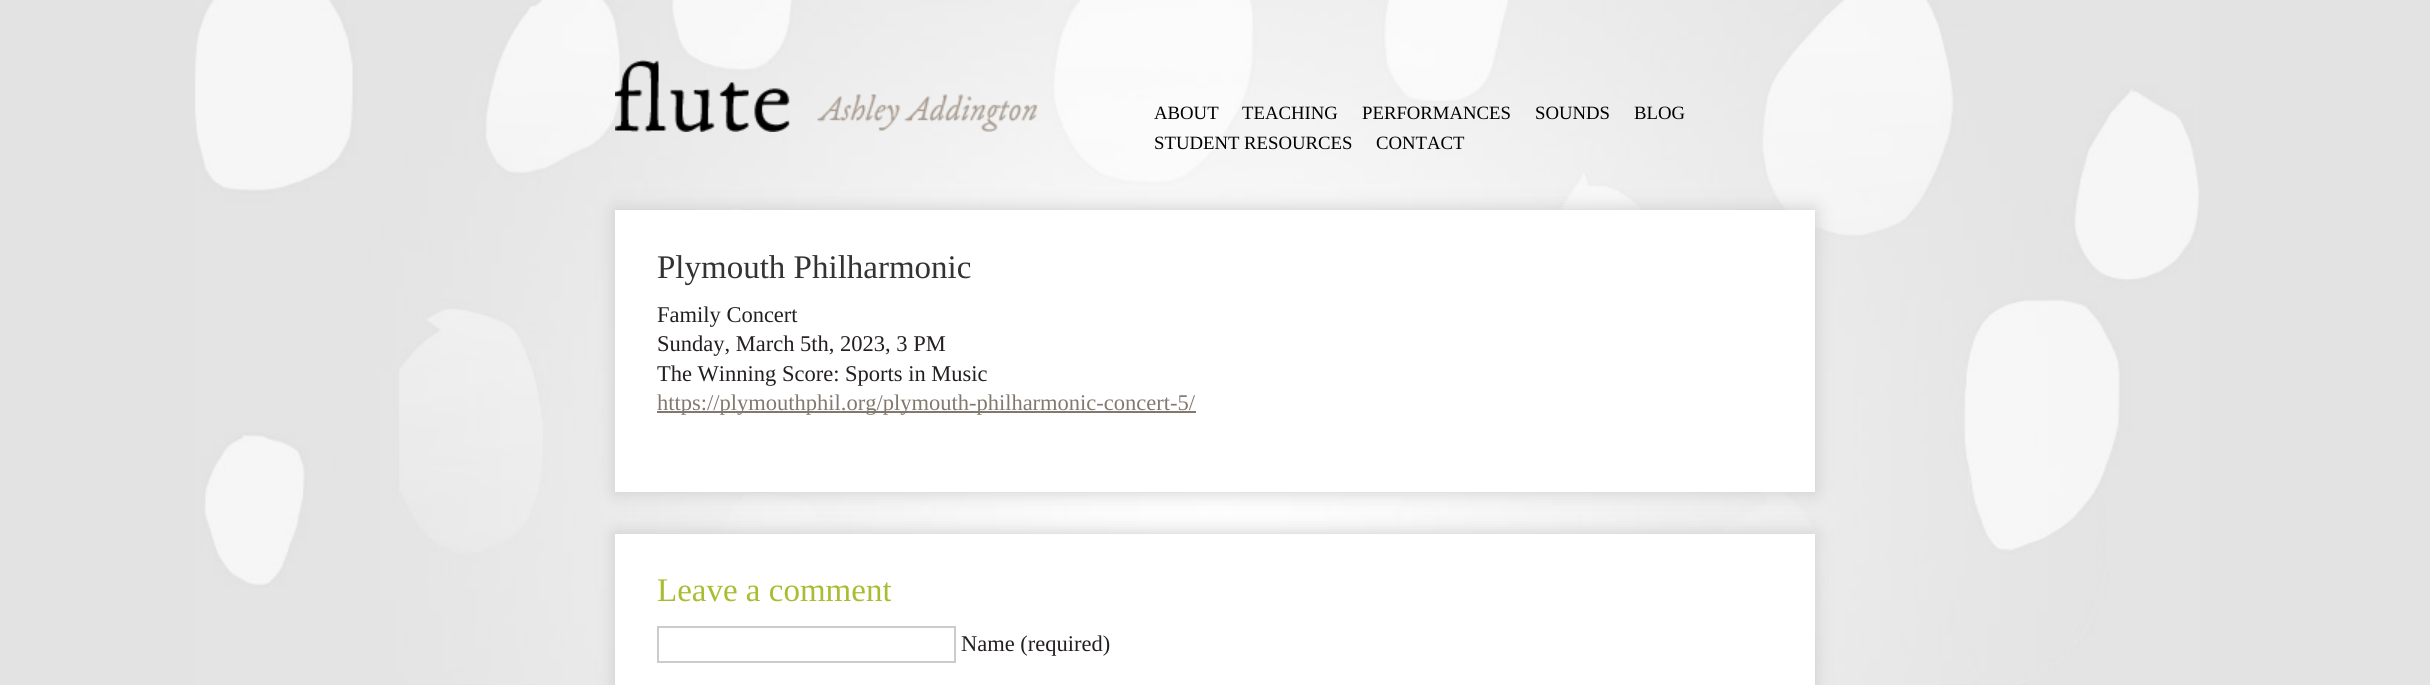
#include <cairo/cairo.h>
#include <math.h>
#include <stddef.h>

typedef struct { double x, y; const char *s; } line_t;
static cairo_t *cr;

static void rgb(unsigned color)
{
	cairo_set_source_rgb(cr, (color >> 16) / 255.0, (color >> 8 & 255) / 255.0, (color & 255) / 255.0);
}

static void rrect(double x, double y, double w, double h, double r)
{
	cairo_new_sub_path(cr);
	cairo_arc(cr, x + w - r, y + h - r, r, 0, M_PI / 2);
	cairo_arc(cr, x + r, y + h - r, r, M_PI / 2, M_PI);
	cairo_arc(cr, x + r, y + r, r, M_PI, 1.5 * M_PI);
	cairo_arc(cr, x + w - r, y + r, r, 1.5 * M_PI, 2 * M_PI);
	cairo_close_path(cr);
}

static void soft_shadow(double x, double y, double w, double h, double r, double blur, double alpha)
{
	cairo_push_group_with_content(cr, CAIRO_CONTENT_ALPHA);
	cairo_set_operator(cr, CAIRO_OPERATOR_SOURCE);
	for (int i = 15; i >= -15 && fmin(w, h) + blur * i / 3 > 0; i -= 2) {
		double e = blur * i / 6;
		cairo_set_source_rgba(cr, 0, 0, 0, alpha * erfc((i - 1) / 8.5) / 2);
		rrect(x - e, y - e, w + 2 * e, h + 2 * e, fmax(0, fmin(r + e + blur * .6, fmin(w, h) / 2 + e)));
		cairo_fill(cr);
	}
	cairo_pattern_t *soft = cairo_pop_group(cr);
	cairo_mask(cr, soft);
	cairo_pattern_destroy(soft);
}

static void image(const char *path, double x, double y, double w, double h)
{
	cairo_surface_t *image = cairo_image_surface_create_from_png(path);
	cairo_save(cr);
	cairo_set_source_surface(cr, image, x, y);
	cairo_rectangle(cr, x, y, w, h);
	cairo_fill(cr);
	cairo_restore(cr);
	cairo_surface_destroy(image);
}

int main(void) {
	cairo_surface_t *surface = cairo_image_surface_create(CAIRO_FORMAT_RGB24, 2430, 685);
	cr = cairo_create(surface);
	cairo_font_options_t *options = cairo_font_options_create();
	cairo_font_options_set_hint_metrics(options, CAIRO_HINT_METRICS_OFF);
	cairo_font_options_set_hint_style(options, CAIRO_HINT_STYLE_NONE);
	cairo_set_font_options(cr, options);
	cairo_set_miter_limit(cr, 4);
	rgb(0xe4e3e4);
	cairo_paint(cr);
	image("img/1.png", 195, 0, 2004, 685);
	image("img/2.png", 615, 60, 423, 72);
	rgb(0xcccccc);
	soft_shadow(615, 210, 1200, 282, 0, 9, 1);
	rgb(0xffffff);
	cairo_rectangle(cr, 615, 210, 1200, 282);
	cairo_fill(cr);
	rgb(0x83786e);
	cairo_rectangle(cr, 657, 411, 539, 2);
	cairo_fill(cr);
	rgb(0xcccccc);
	soft_shadow(615, 534, 1200, 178, 0, 9, 1);
	rgb(0xffffff);
	cairo_rectangle(cr, 615, 534, 1200, 151);
	cairo_fill(cr);
	cairo_rectangle(cr, 658, 627, 297, 35);
	rgb(0xcccccc);
	cairo_stroke(cr);
	cairo_select_font_face(cr, "Liberation Serif", CAIRO_FONT_SLANT_NORMAL, CAIRO_FONT_WEIGHT_NORMAL);
	cairo_set_font_size(cr, 18.75);
	rgb(0x000000);
	{
		static const line_t items[] = {
			{1154, 119, "ABOUT"},
			{1242, 119, "TEACHING"},
			{1362, 119, "PERFORMANCES"},
			{1535, 119, "SOUNDS"},
			{1634, 119, "BLOG"},
			{1154, 149, "STUDENT RESOURCES"},
			{1376, 149, "CONTACT"},
		};
		for (size_t i = 0; i < sizeof items / sizeof *items; i++) {
			cairo_move_to(cr, items[i].x, items[i].y);
			cairo_show_text(cr, items[i].s);
		}
	}
	cairo_set_font_size(cr, 33);
	rgb(0x333333);
	cairo_move_to(cr, 657, 278);
	cairo_show_text(cr, "Plymouth Philharmonic");
	cairo_set_font_size(cr, 22.5);
	rgb(0x231f20);
	{
		static const line_t items[] = {
			{657, 322, "Family Concert"},
			{657, 351, "Sunday, March 5th, 2023, 3 PM"},
			{657, 381, "The Winning Score: Sports in Music"},
		};
		for (size_t i = 0; i < sizeof items / sizeof *items; i++) {
			cairo_move_to(cr, items[i].x, items[i].y);
			cairo_show_text(cr, items[i].s);
		}
	}
	rgb(0x83786e);
	cairo_move_to(cr, 657, 410);
	cairo_show_text(cr, "https://plymouthphil.org/plymouth-philharmonic-concert-5/");
	cairo_set_font_size(cr, 33);
	rgb(0xaabc31);
	cairo_move_to(cr, 657, 601);
	cairo_show_text(cr, "Leave a comment");
	cairo_set_font_size(cr, 22.5);
	rgb(0x231f20);
	cairo_move_to(cr, 961, 651);
	cairo_show_text(cr, "Name (required)");
	cairo_surface_write_to_png(surface, "page.png");
	cairo_font_options_destroy(options);
	cairo_destroy(cr);
	cairo_surface_destroy(surface);
	return 0;
}
